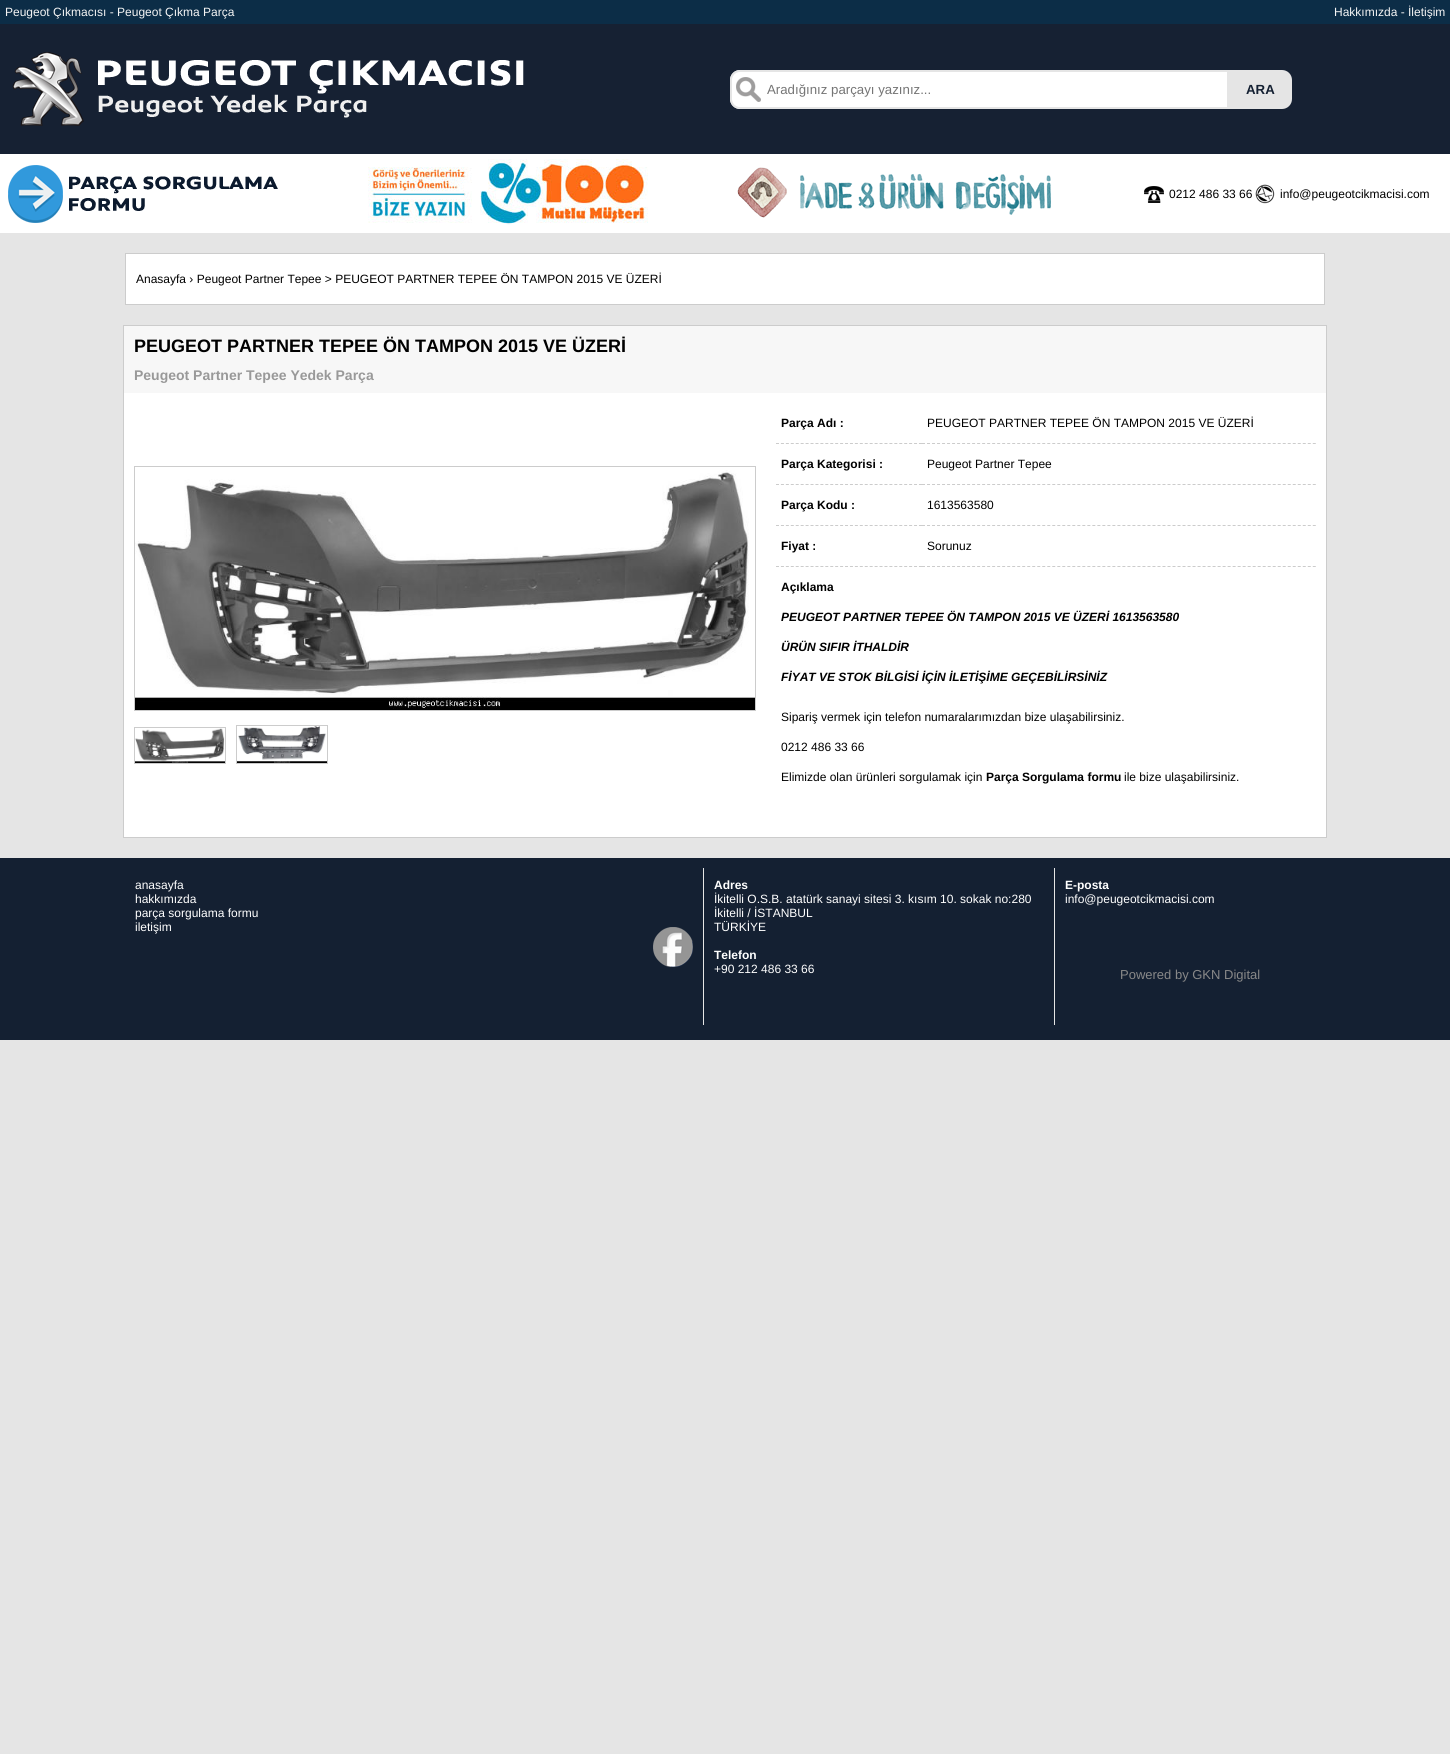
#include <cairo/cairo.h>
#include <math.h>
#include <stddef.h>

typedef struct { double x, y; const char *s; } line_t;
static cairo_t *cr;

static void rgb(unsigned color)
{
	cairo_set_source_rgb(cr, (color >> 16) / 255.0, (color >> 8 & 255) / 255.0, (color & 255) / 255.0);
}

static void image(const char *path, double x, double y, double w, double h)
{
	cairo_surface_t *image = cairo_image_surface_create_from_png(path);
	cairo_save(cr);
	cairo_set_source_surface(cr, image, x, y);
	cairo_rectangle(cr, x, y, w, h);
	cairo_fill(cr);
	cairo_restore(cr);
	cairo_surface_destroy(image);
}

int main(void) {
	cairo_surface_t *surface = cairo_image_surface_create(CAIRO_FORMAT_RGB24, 1450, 1754);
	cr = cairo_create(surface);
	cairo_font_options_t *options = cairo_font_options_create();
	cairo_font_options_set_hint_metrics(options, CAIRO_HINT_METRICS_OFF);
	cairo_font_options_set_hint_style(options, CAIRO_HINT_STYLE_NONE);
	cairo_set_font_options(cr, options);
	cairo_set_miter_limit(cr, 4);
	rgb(0xe5e5e5);
	cairo_paint(cr);
	rgb(0x0c2d47);
	cairo_rectangle(cr, 0, 0, 1450, 24);
	cairo_fill(cr);
	rgb(0x162133);
	cairo_rectangle(cr, 0, 24, 1450, 130);
	cairo_fill(cr);
	image("img/1.png", 12, 52, 512, 74);
	rgb(0xffffff);
	cairo_new_path(cr);
	cairo_move_to(cr, 740, 70);
	cairo_line_to(cr, 1229, 70);
	cairo_line_to(cr, 1229, 109);
	cairo_line_to(cr, 740, 109);
	cairo_curve_to(cr, 734.5, 109, 730, 104.5, 730, 99);
	cairo_line_to(cr, 730, 80);
	cairo_curve_to(cr, 730, 74.5, 734.5, 70, 740, 70);
	cairo_close_path(cr);
	cairo_fill(cr);
	image("img/2.png", 736, 77, 25, 25);
	cairo_new_path(cr);
	cairo_move_to(cr, 740, 71);
	cairo_line_to(cr, 1228, 71);
	cairo_line_to(cr, 1228, 108);
	cairo_line_to(cr, 740, 108);
	cairo_curve_to(cr, 735, 108, 731, 104, 731, 99);
	cairo_line_to(cr, 731, 80);
	cairo_curve_to(cr, 731, 75, 735, 71, 740, 71);
	cairo_close_path(cr);
	rgb(0xe5e5e5);
	cairo_stroke(cr);
	cairo_new_path(cr);
	cairo_move_to(cr, 1230, 71);
	cairo_line_to(cr, 1282, 71);
	cairo_curve_to(cr, 1287, 71, 1291, 75, 1291, 80);
	cairo_line_to(cr, 1291, 99);
	cairo_curve_to(cr, 1291, 104, 1287, 108, 1282, 108);
	cairo_line_to(cr, 1230, 108);
	cairo_close_path(cr);
	cairo_fill_preserve(cr);
	cairo_stroke(cr);
	rgb(0xffffff);
	cairo_rectangle(cr, 0, 154, 1450, 79);
	cairo_fill(cr);
	image("img/3.png", 8, 165, 270, 58);
	image("img/4.png", 368, 159, 280, 66);
	image("img/5.png", 737, 167, 314, 51);
	image("img/6.png", 1144, 186, 20, 17);
	image("img/7.png", 1255, 184, 20, 20);
	cairo_rectangle(cr, 125.5, 253.5, 1199, 51);
	rgb(0xcccccc);
	cairo_set_line_width(cr, 1);
	cairo_stroke(cr);
	rgb(0xffffff);
	cairo_rectangle(cr, 126, 254, 1198, 50);
	cairo_fill(cr);
	cairo_rectangle(cr, 123.5, 325.5, 1203, 512);
	rgb(0xcccccc);
	cairo_stroke(cr);
	rgb(0xf7f7f7);
	cairo_rectangle(cr, 124, 326, 1202, 67);
	cairo_fill(cr);
	rgb(0xffffff);
	cairo_rectangle(cr, 124, 393, 1202, 444);
	cairo_fill(cr);
	cairo_rectangle(cr, 134.5, 466.5, 621, 244);
	rgb(0xcccccc);
	cairo_stroke(cr);
	image("img/8.png", 135, 470, 620, 240);
	cairo_rectangle(cr, 236.5, 725.5, 91, 38);
	cairo_stroke(cr);
	cairo_rectangle(cr, 134.5, 727.5, 91, 36);
	cairo_stroke(cr);
	image("img/9.png", 237, 726, 90, 37);
	image("img/10.png", 135, 728, 90, 35);
	cairo_new_path(cr);
	cairo_move_to(cr, 776, 443.5);
	cairo_line_to(cr, 922, 443.5);
	cairo_set_dash(cr, (double[]){3, 1.93}, 2, 0);
	cairo_stroke(cr);
	cairo_new_path(cr);
	cairo_move_to(cr, 922, 443.5);
	cairo_line_to(cr, 1316, 443.5);
	cairo_set_dash(cr, (double[]){3, 2.01}, 2, 0);
	cairo_stroke(cr);
	cairo_new_path(cr);
	cairo_move_to(cr, 776, 484.5);
	cairo_line_to(cr, 922, 484.5);
	cairo_set_dash(cr, (double[]){3, 1.93}, 2, 0);
	cairo_stroke(cr);
	cairo_new_path(cr);
	cairo_move_to(cr, 922, 484.5);
	cairo_line_to(cr, 1316, 484.5);
	cairo_set_dash(cr, (double[]){3, 2.01}, 2, 0);
	cairo_stroke(cr);
	cairo_new_path(cr);
	cairo_move_to(cr, 776, 525.5);
	cairo_line_to(cr, 922, 525.5);
	cairo_set_dash(cr, (double[]){3, 1.93}, 2, 0);
	cairo_stroke(cr);
	cairo_new_path(cr);
	cairo_move_to(cr, 922, 525.5);
	cairo_line_to(cr, 1316, 525.5);
	cairo_set_dash(cr, (double[]){3, 2.01}, 2, 0);
	cairo_stroke(cr);
	cairo_new_path(cr);
	cairo_move_to(cr, 776, 566.5);
	cairo_line_to(cr, 922, 566.5);
	cairo_set_dash(cr, (double[]){3, 1.93}, 2, 0);
	cairo_stroke(cr);
	cairo_new_path(cr);
	cairo_move_to(cr, 922, 566.5);
	cairo_line_to(cr, 1316, 566.5);
	cairo_set_dash(cr, (double[]){3, 2.01}, 2, 0);
	cairo_stroke(cr);
	rgb(0x142032);
	cairo_rectangle(cr, 0, 858, 1450, 182);
	cairo_fill(cr);
	image("img/11.png", 653, 927, 40, 40);
	rgb(0xe5e5e5);
	cairo_rectangle(cr, 1054, 868, 1, 157);
	cairo_fill(cr);
	cairo_rectangle(cr, 703, 868, 1, 157);
	cairo_fill(cr);
	cairo_select_font_face(cr, "Liberation Sans", CAIRO_FONT_SLANT_NORMAL, CAIRO_FONT_WEIGHT_NORMAL);
	cairo_set_font_size(cr, 12);
	rgb(0xf5f5f5);
	cairo_move_to(cr, 5, 16);
	cairo_show_text(cr, "Peugeot Çıkmacısı - Peugeot Çıkma Parça");
	cairo_move_to(cr, 1334, 16);
	cairo_show_text(cr, "Hakkımızda - İletişim");
	cairo_set_font_size(cr, 13.25);
	rgb(0x757575);
	cairo_move_to(cr, 767, 94);
	cairo_show_text(cr, "Aradığınız parçayı yazınız...");
	cairo_select_font_face(cr, "Liberation Sans", CAIRO_FONT_SLANT_NORMAL, CAIRO_FONT_WEIGHT_BOLD);
	rgb(0x142032);
	cairo_move_to(cr, 1246, 94);
	cairo_show_text(cr, "ARA");
	cairo_select_font_face(cr, "Liberation Sans", CAIRO_FONT_SLANT_NORMAL, CAIRO_FONT_WEIGHT_NORMAL);
	cairo_set_font_size(cr, 12);
	rgb(0x000000);
	{
		static const line_t items[] = {
			{1169, 198, "0212 486 33 66"},
			{1280, 198, "info@peugeotcikmacisi.com"},
			{136, 283, "Anasayfa › Peugeot Partner Tepee > PEUGEOT PARTNER TEPEE ÖN TAMPON 2015 VE ÜZERİ"},
		};
		for (size_t i = 0; i < sizeof items / sizeof *items; i++) {
			cairo_move_to(cr, items[i].x, items[i].y);
			cairo_show_text(cr, items[i].s);
		}
	}
	cairo_select_font_face(cr, "Liberation Sans", CAIRO_FONT_SLANT_NORMAL, CAIRO_FONT_WEIGHT_BOLD);
	cairo_set_font_size(cr, 18);
	cairo_move_to(cr, 134, 352);
	cairo_show_text(cr, "PEUGEOT PARTNER TEPEE ÖN TAMPON 2015 VE ÜZERİ");
	cairo_set_font_size(cr, 14);
	rgb(0x999999);
	cairo_move_to(cr, 134, 380);
	cairo_show_text(cr, "Peugeot Partner Tepee Yedek Parça");
	cairo_set_font_size(cr, 12);
	rgb(0x000000);
	cairo_move_to(cr, 781, 427);
	cairo_show_text(cr, "Parça Adı :");
	cairo_select_font_face(cr, "Liberation Sans", CAIRO_FONT_SLANT_NORMAL, CAIRO_FONT_WEIGHT_NORMAL);
	cairo_move_to(cr, 927, 427);
	cairo_show_text(cr, "PEUGEOT PARTNER TEPEE ÖN TAMPON 2015 VE ÜZERİ");
	cairo_select_font_face(cr, "Liberation Sans", CAIRO_FONT_SLANT_NORMAL, CAIRO_FONT_WEIGHT_BOLD);
	cairo_move_to(cr, 781, 468);
	cairo_show_text(cr, "Parça Kategorisi :");
	cairo_select_font_face(cr, "Liberation Sans", CAIRO_FONT_SLANT_NORMAL, CAIRO_FONT_WEIGHT_NORMAL);
	cairo_move_to(cr, 927, 468);
	cairo_show_text(cr, "Peugeot Partner Tepee");
	cairo_select_font_face(cr, "Liberation Sans", CAIRO_FONT_SLANT_NORMAL, CAIRO_FONT_WEIGHT_BOLD);
	cairo_move_to(cr, 781, 509);
	cairo_show_text(cr, "Parça Kodu :");
	cairo_select_font_face(cr, "Liberation Sans", CAIRO_FONT_SLANT_NORMAL, CAIRO_FONT_WEIGHT_NORMAL);
	cairo_move_to(cr, 927, 509);
	cairo_show_text(cr, "1613563580");
	cairo_select_font_face(cr, "Liberation Sans", CAIRO_FONT_SLANT_NORMAL, CAIRO_FONT_WEIGHT_BOLD);
	cairo_move_to(cr, 781, 550);
	cairo_show_text(cr, "Fiyat :");
	cairo_select_font_face(cr, "Liberation Sans", CAIRO_FONT_SLANT_NORMAL, CAIRO_FONT_WEIGHT_NORMAL);
	cairo_move_to(cr, 927, 550);
	cairo_show_text(cr, "Sorunuz");
	cairo_select_font_face(cr, "Liberation Sans", CAIRO_FONT_SLANT_NORMAL, CAIRO_FONT_WEIGHT_BOLD);
	cairo_move_to(cr, 781, 591);
	cairo_show_text(cr, "Açıklama");
	cairo_select_font_face(cr, "Liberation Sans", CAIRO_FONT_SLANT_ITALIC, CAIRO_FONT_WEIGHT_BOLD);
	{
		static const line_t items[] = {
			{781, 621, "PEUGEOT PARTNER TEPEE ÖN TAMPON 2015 VE ÜZERİ 1613563580"},
			{781, 651, "ÜRÜN SIFIR İTHALDİR"},
			{781, 681, "FİYAT VE STOK BİLGİSİ İÇİN İLETİŞİME GEÇEBİLİRSİNİZ"},
		};
		for (size_t i = 0; i < sizeof items / sizeof *items; i++) {
			cairo_move_to(cr, items[i].x, items[i].y);
			cairo_show_text(cr, items[i].s);
		}
	}
	cairo_select_font_face(cr, "Liberation Sans", CAIRO_FONT_SLANT_NORMAL, CAIRO_FONT_WEIGHT_NORMAL);
	{
		static const line_t items[] = {
			{781, 721, "Sipariş vermek için telefon numaralarımızdan bize ulaşabilirsiniz."},
			{781, 751, "0212 486 33 66"},
			{781, 781, "Elimizde olan ürünleri sorgulamak için"},
		};
		for (size_t i = 0; i < sizeof items / sizeof *items; i++) {
			cairo_move_to(cr, items[i].x, items[i].y);
			cairo_show_text(cr, items[i].s);
		}
	}
	cairo_select_font_face(cr, "Liberation Sans", CAIRO_FONT_SLANT_NORMAL, CAIRO_FONT_WEIGHT_BOLD);
	cairo_move_to(cr, 986, 781);
	cairo_show_text(cr, "Parça Sorgulama formu");
	cairo_select_font_face(cr, "Liberation Sans", CAIRO_FONT_SLANT_NORMAL, CAIRO_FONT_WEIGHT_NORMAL);
	cairo_move_to(cr, 1124, 781);
	cairo_show_text(cr, "ile bize ulaşabilirsiniz.");
	rgb(0xffffff);
	{
		static const line_t items[] = {
			{135, 889, "anasayfa"},
			{135, 903, "hakkımızda"},
			{135, 917, "parça sorgulama formu"},
			{135, 931, "iletişim"},
		};
		for (size_t i = 0; i < sizeof items / sizeof *items; i++) {
			cairo_move_to(cr, items[i].x, items[i].y);
			cairo_show_text(cr, items[i].s);
		}
	}
	cairo_select_font_face(cr, "Liberation Sans", CAIRO_FONT_SLANT_NORMAL, CAIRO_FONT_WEIGHT_BOLD);
	cairo_move_to(cr, 714, 889);
	cairo_show_text(cr, "Adres");
	cairo_select_font_face(cr, "Liberation Sans", CAIRO_FONT_SLANT_NORMAL, CAIRO_FONT_WEIGHT_NORMAL);
	{
		static const line_t items[] = {
			{714, 903, "İkitelli O.S.B. atatürk sanayi sitesi 3. kısım 10. sokak no:280"},
			{714, 917, "İkitelli / İSTANBUL"},
			{714, 931, "TÜRKİYE"},
		};
		for (size_t i = 0; i < sizeof items / sizeof *items; i++) {
			cairo_move_to(cr, items[i].x, items[i].y);
			cairo_show_text(cr, items[i].s);
		}
	}
	cairo_select_font_face(cr, "Liberation Sans", CAIRO_FONT_SLANT_NORMAL, CAIRO_FONT_WEIGHT_BOLD);
	cairo_move_to(cr, 714, 959);
	cairo_show_text(cr, "Telefon");
	cairo_select_font_face(cr, "Liberation Sans", CAIRO_FONT_SLANT_NORMAL, CAIRO_FONT_WEIGHT_NORMAL);
	cairo_move_to(cr, 714, 973);
	cairo_show_text(cr, "+90 212 486 33 66");
	cairo_select_font_face(cr, "Liberation Sans", CAIRO_FONT_SLANT_NORMAL, CAIRO_FONT_WEIGHT_BOLD);
	cairo_move_to(cr, 1065, 889);
	cairo_show_text(cr, "E-posta");
	cairo_select_font_face(cr, "Liberation Sans", CAIRO_FONT_SLANT_NORMAL, CAIRO_FONT_WEIGHT_NORMAL);
	cairo_move_to(cr, 1065, 903);
	cairo_show_text(cr, "info@peugeotcikmacisi.com");
	cairo_set_font_size(cr, 13);
	rgb(0x888888);
	cairo_move_to(cr, 1120, 979);
	cairo_show_text(cr, "Powered by GKN Digital");
	cairo_surface_write_to_png(surface, "page.png");
	cairo_font_options_destroy(options);
	cairo_destroy(cr);
	cairo_surface_destroy(surface);
	return 0;
}
